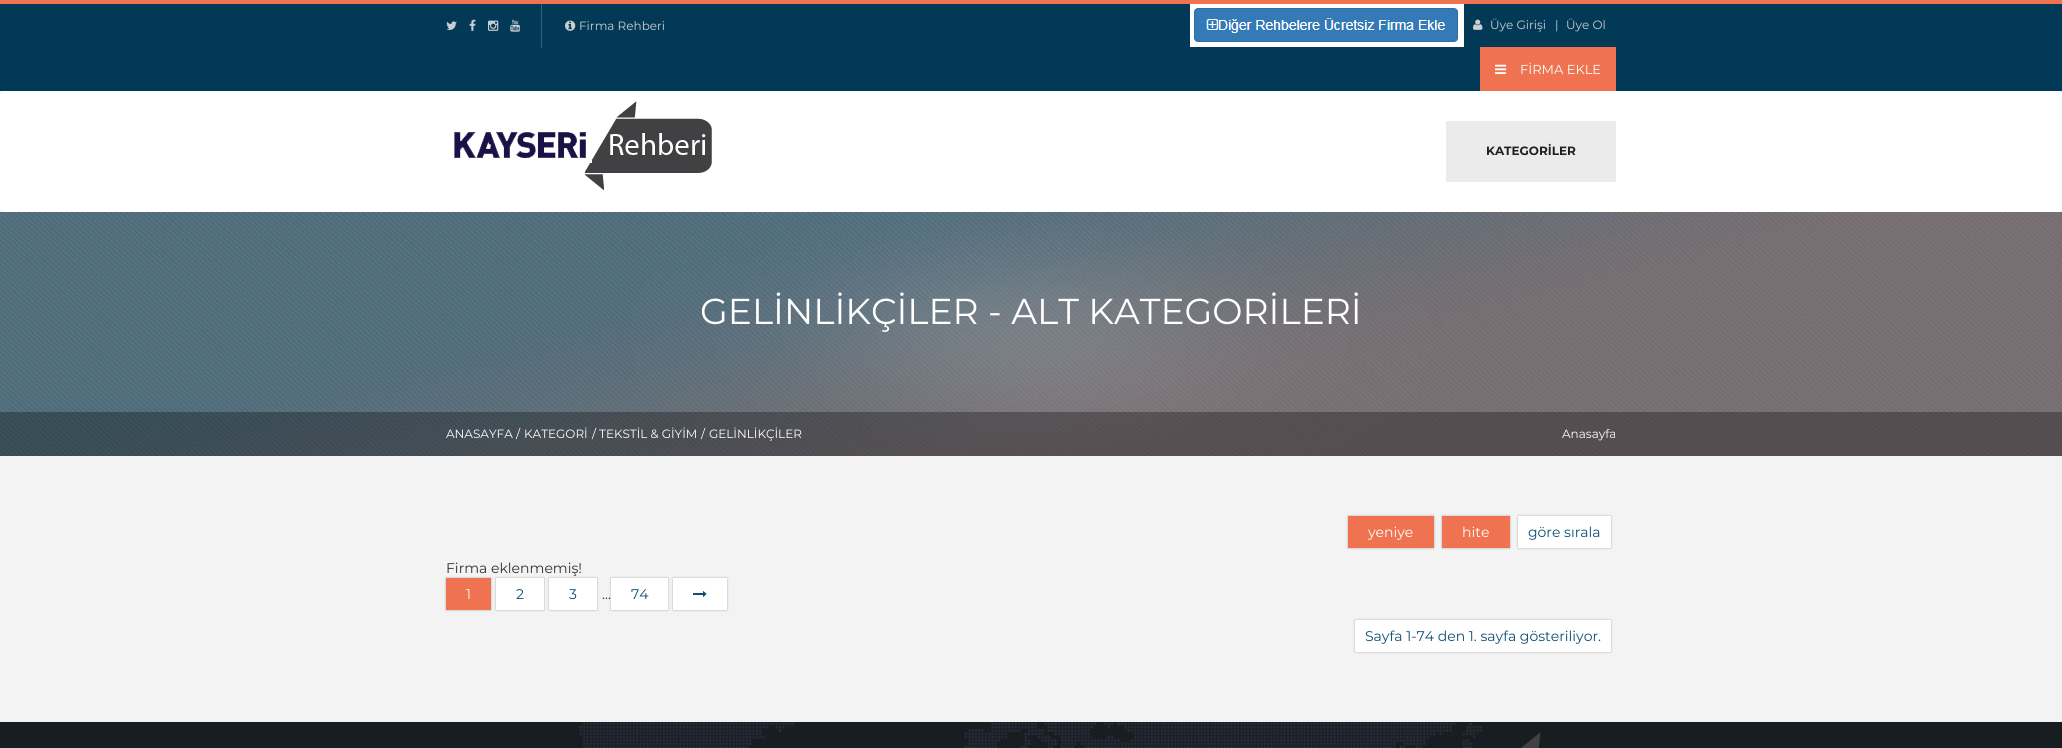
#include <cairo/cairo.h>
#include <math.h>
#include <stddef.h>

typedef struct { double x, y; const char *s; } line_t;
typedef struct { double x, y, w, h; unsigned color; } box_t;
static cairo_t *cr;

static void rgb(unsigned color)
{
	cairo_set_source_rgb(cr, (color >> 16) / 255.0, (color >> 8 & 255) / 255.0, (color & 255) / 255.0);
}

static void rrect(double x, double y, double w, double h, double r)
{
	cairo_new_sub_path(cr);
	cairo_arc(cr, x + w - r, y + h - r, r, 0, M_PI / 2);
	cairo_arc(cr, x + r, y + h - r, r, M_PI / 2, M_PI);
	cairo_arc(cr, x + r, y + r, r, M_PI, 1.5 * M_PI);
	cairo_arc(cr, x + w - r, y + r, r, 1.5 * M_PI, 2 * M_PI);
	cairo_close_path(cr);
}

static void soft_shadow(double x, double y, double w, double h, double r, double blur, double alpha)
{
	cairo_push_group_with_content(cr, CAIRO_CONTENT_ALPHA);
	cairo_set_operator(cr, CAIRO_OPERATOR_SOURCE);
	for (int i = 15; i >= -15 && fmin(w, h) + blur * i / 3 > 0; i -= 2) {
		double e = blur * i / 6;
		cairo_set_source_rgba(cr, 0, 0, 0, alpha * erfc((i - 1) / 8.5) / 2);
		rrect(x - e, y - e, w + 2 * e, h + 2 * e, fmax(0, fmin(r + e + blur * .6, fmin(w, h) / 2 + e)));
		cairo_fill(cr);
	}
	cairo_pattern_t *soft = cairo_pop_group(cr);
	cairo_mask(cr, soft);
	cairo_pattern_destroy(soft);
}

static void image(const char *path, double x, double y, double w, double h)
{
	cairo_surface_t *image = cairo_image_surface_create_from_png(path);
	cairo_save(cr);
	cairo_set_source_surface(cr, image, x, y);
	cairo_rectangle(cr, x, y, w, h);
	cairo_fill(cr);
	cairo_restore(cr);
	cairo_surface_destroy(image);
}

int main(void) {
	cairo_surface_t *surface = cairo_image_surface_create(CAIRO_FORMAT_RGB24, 2062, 748);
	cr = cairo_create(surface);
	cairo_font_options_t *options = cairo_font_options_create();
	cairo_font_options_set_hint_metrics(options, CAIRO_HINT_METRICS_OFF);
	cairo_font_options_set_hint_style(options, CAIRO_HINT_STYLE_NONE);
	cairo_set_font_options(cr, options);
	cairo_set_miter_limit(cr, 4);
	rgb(0xf3f3f3);
	cairo_paint(cr);
	{
		static const box_t items[] = {
			{0, 4, 2062, 87, 0x023956},
			{0, 0, 2062, 4, 0xef7351},
			{541, 4, 1, 44, 0x356178},
		};
		for (size_t i = 0; i < sizeof items / sizeof *items; i++) {
			rgb(items[i].color);
			cairo_rectangle(cr, items[i].x, items[i].y, items[i].w, items[i].h);
			cairo_fill(cr);
		}
	}
	image("img/1.png", 446, 21, 11, 9);
	image("img/2.png", 469, 19, 7, 12);
	image("img/3.png", 488, 20, 11, 11);
	image("img/4.png", 510, 19, 11, 13);
	image("img/5.png", 565, 20, 11, 11);
	image("img/6.png", 1190, 4, 274, 43);
	image("img/7.png", 1473, 19, 10, 11);
	rgb(0xef7351);
	cairo_rectangle(cr, 1480, 47, 136, 44);
	cairo_fill(cr);
	image("img/8.png", 1495, 64, 12, 10);
	rgb(0xffffff);
	rrect(0, 91, 2062, 121, 4);
	cairo_fill(cr);
	image("img/9.png", 454, 101, 258, 90);
	rgb(0xebebeb);
	cairo_rectangle(cr, 1446, 121, 170, 61);
	cairo_fill(cr);
	image("img/10.png", 0, 212, 2062, 244);
	cairo_set_source_rgba(cr, 0, 0, 0, 0.3);
	cairo_rectangle(cr, 0, 412, 2062, 44);
	cairo_fill(cr);
	rgb(0x000000);
	soft_shadow(1348, 516, 86, 32, 0, 1, 0.3);
	rgb(0xef7351);
	cairo_rectangle(cr, 1348, 516, 86, 32);
	cairo_fill(cr);
	rgb(0x000000);
	soft_shadow(1442, 516, 68, 32, 0, 1, 0.3);
	rgb(0xef7351);
	cairo_rectangle(cr, 1442, 516, 68, 32);
	cairo_fill(cr);
	rgb(0x000000);
	soft_shadow(1518, 516, 93, 32, 0, 1, 0.3);
	rgb(0xffffff);
	cairo_rectangle(cr, 1518, 516, 93, 32);
	cairo_fill(cr);
	rgb(0x000000);
	soft_shadow(446, 578, 45, 32, 0, 1, 0.3);
	rgb(0xef7351);
	cairo_rectangle(cr, 446, 578, 45, 32);
	cairo_fill(cr);
	rgb(0x000000);
	soft_shadow(496, 578, 48, 32, 0, 1, 0.3);
	rgb(0xffffff);
	cairo_rectangle(cr, 496, 578, 48, 32);
	cairo_fill(cr);
	rgb(0x000000);
	soft_shadow(549, 578, 48, 32, 0, 1, 0.3);
	rgb(0xffffff);
	cairo_rectangle(cr, 549, 578, 48, 32);
	cairo_fill(cr);
	rgb(0x000000);
	soft_shadow(611, 578, 57, 32, 0, 1, 0.3);
	rgb(0xffffff);
	cairo_rectangle(cr, 611, 578, 57, 32);
	cairo_fill(cr);
	rgb(0x000000);
	soft_shadow(673, 578, 54, 32, 0, 1, 0.3);
	rgb(0xffffff);
	cairo_rectangle(cr, 673, 578, 54, 32);
	cairo_fill(cr);
	image("img/11.png", 693, 591, 14, 6);
	rgb(0x000000);
	soft_shadow(1355, 620, 256, 32, 0, 1, 0.3);
	rgb(0xffffff);
	cairo_rectangle(cr, 1355, 620, 256, 32);
	cairo_fill(cr);
	rgb(0x161e22);
	cairo_rectangle(cr, 0, 722, 2062, 26);
	cairo_fill(cr);
	image("img/12.png", 579, 722, 903, 26);
	image("img/13.png", 1521, 732, 20, 16);
	cairo_select_font_face(cr, "Montserrat", CAIRO_FONT_SLANT_NORMAL, CAIRO_FONT_WEIGHT_NORMAL);
	cairo_set_font_size(cr, 12);
	rgb(0xc9ced1);
	{
		static const line_t items[] = {
			{579, 30, "Firma Rehberi"},
			{1490, 29, "Üye Girişi"},
			{1555, 29, "|"},
			{1566, 29, "Üye Ol"},
		};
		for (size_t i = 0; i < sizeof items / sizeof *items; i++) {
			cairo_move_to(cr, items[i].x, items[i].y);
			cairo_show_text(cr, items[i].s);
		}
	}
	cairo_set_font_size(cr, 13);
	rgb(0xffffff);
	cairo_move_to(cr, 1520, 74);
	cairo_show_text(cr, "FİRMA EKLE");
	cairo_select_font_face(cr, "Montserrat", CAIRO_FONT_SLANT_NORMAL, CAIRO_FONT_WEIGHT_BOLD);
	cairo_set_font_size(cr, 12);
	rgb(0x1f2223);
	cairo_move_to(cr, 1486, 155);
	cairo_show_text(cr, "KATEGORİLER");
	cairo_select_font_face(cr, "Montserrat", CAIRO_FONT_SLANT_NORMAL, CAIRO_FONT_WEIGHT_NORMAL);
	cairo_set_font_size(cr, 36);
	rgb(0xffffff);
	cairo_move_to(cr, 700, 324);
	cairo_show_text(cr, "GELİNLİKÇİLER - ALT KATEGORİLERİ");
	cairo_set_font_size(cr, 12);
	{
		static const line_t items[] = {
			{446, 438, "ANASAYFA"},
			{516, 438, "/"},
			{524, 438, "KATEGORİ"},
			{592, 438, "/"},
			{599, 438, "TEKSTİL & GİYİM"},
			{701, 438, "/"},
			{709, 438, "GELİNLİKÇİLER"},
			{1562, 438, "Anasayfa"},
		};
		for (size_t i = 0; i < sizeof items / sizeof *items; i++) {
			cairo_move_to(cr, items[i].x, items[i].y);
			cairo_show_text(cr, items[i].s);
		}
	}
	cairo_set_font_size(cr, 14);
	cairo_move_to(cr, 1368, 537);
	cairo_show_text(cr, "yeniye");
	cairo_move_to(cr, 1462, 537);
	cairo_show_text(cr, "hite");
	rgb(0x0e4f71);
	cairo_move_to(cr, 1528, 537);
	cairo_show_text(cr, "göre sırala");
	rgb(0x333333);
	cairo_move_to(cr, 446, 573);
	cairo_show_text(cr, "Firma eklenmemiş!");
	rgb(0xffffff);
	cairo_move_to(cr, 466, 599);
	cairo_show_text(cr, "1");
	rgb(0x0e4f71);
	cairo_move_to(cr, 516, 599);
	cairo_show_text(cr, "2");
	cairo_move_to(cr, 569, 599);
	cairo_show_text(cr, "3");
	rgb(0x333333);
	cairo_move_to(cr, 602, 599);
	cairo_show_text(cr, "...");
	rgb(0x0e4f71);
	cairo_move_to(cr, 631, 599);
	cairo_show_text(cr, "74");
	cairo_move_to(cr, 1365, 641);
	cairo_show_text(cr, "Sayfa 1-74 den 1. sayfa gösteriliyor.");
	cairo_surface_write_to_png(surface, "page.png");
	cairo_font_options_destroy(options);
	cairo_destroy(cr);
	cairo_surface_destroy(surface);
	return 0;
}
